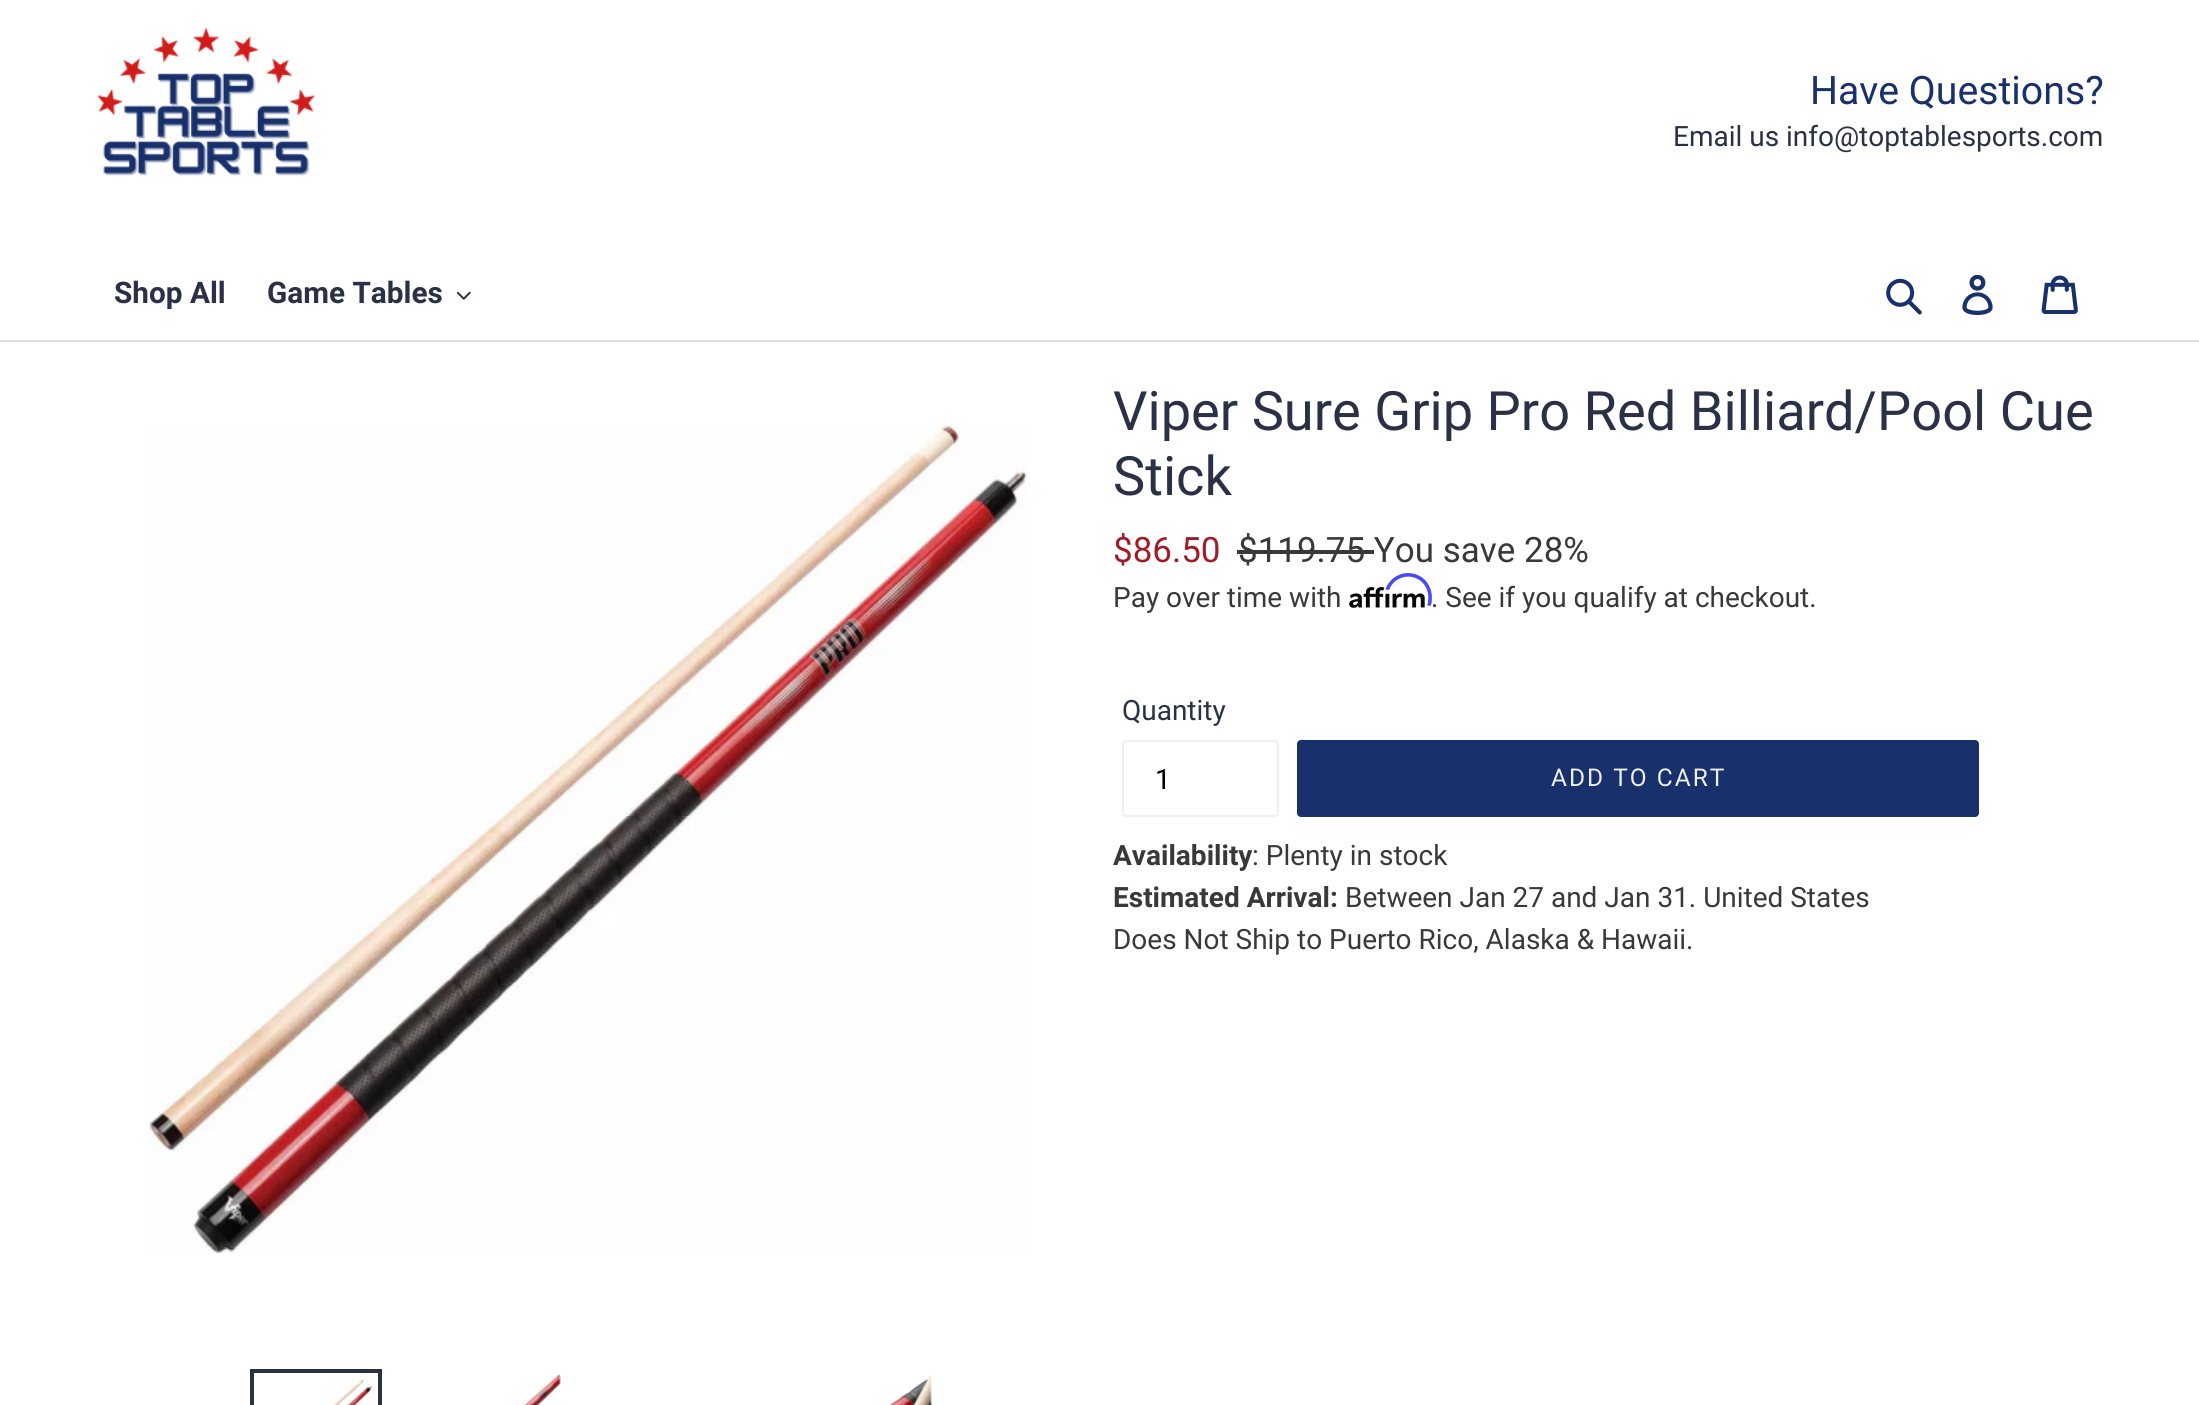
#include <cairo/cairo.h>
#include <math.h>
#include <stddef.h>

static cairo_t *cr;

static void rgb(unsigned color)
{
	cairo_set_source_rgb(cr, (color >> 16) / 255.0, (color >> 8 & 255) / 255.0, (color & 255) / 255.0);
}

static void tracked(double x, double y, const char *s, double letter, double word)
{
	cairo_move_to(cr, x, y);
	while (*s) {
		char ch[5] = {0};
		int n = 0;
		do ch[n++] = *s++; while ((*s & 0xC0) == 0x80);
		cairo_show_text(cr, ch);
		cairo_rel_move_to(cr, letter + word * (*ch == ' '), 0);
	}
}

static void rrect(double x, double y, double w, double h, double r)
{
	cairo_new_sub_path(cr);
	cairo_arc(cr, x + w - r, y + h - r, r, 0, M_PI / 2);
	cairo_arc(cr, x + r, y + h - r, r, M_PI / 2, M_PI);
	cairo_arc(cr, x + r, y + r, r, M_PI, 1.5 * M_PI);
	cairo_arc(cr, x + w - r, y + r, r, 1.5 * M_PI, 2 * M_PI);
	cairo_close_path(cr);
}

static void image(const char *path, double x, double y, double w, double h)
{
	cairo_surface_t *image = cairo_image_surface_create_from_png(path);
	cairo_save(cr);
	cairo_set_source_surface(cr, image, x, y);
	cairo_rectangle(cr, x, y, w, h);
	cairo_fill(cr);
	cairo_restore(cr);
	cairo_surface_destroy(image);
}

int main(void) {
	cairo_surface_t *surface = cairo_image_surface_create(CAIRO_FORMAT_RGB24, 2199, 1405);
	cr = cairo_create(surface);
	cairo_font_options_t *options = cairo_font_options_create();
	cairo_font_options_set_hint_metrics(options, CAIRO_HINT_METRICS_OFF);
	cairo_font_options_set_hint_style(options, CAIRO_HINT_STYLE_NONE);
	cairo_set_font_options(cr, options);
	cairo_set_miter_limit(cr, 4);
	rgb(0xffffff);
	cairo_paint(cr);
	rgb(0xdedede);
	cairo_rectangle(cr, 0, 340, 2199, 2);
	cairo_fill(cr);
	image("img/1.png", 97, 27, 218, 149);
	image("img/2.png", 457, 291, 14, 9);
	image("img/3.png", 1886, 278, 36, 37);
	image("img/4.png", 1962, 275, 31, 40);
	image("img/5.png", 2041, 275, 37, 39);
	image("img/6.png", 148, 424, 880, 830);
	cairo_rectangle(cr, 252, 1371, 128, 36);
	rgb(0x2a3146);
	cairo_set_line_width(cr, 4);
	cairo_stroke(cr);
	image("img/7.png", 333, 1379, 40, 26);
	image("img/8.png", 524, 1374, 37, 31);
	image("img/9.png", 889, 1375, 43, 30);
	rgb(0x393939);
	cairo_rectangle(cr, 1237, 550, 137, 4);
	cairo_fill(cr);
	image("img/11.png", 1349, 587, 76, 21);
	image("img/10.png", 1385, 573, 47, 33);
	rrect(1123, 741, 155, 75, 3);
	rgb(0xf0f0f0);
	cairo_set_line_width(cr, 2);
	cairo_stroke(cr);
	rgb(0x18306b);
	rrect(1297, 740, 682, 77, 4);
	cairo_fill(cr);
	cairo_select_font_face(cr, "Roboto", CAIRO_FONT_SLANT_NORMAL, CAIRO_FONT_WEIGHT_NORMAL);
	cairo_set_font_size(cr, 39.25);
	cairo_move_to(cr, 1810, 104);
	cairo_show_text(cr, "Have Questions?");
	cairo_set_font_size(cr, 28);
	rgb(0x2a3146);
	cairo_move_to(cr, 1673, 146);
	cairo_show_text(cr, "Email us info@toptablesports.com");
	cairo_select_font_face(cr, "Roboto", CAIRO_FONT_SLANT_NORMAL, CAIRO_FONT_WEIGHT_BOLD);
	cairo_set_font_size(cr, 29.75);
	cairo_move_to(cr, 114, 303);
	cairo_show_text(cr, "Shop All");
	cairo_move_to(cr, 267, 303);
	cairo_show_text(cr, "Game Tables");
	cairo_select_font_face(cr, "Roboto", CAIRO_FONT_SLANT_NORMAL, CAIRO_FONT_WEIGHT_NORMAL);
	cairo_set_font_size(cr, 54.25);
	cairo_move_to(cr, 1113, 430);
	cairo_show_text(cr, "Viper Sure Grip Pro Red Billiard/Pool Cue");
	cairo_move_to(cr, 1113, 495);
	cairo_show_text(cr, "Stick");
	cairo_set_font_size(cr, 35);
	rgb(0xa11b27);
	cairo_move_to(cr, 1113, 562);
	cairo_show_text(cr, "$86.50");
	rgb(0x393939);
	cairo_move_to(cr, 1238, 562);
	cairo_show_text(cr, "$119.75 You save 28%");
	cairo_set_font_size(cr, 28);
	cairo_move_to(cr, 1113, 607);
	cairo_show_text(cr, "Pay over time with");
	cairo_move_to(cr, 1431, 607);
	cairo_show_text(cr, ". See if you qualify at checkout.");
	rgb(0x2a3146);
	cairo_move_to(cr, 1122, 720);
	cairo_show_text(cr, "Quantity");
	rgb(0x000000);
	cairo_move_to(cr, 1155, 789);
	cairo_show_text(cr, "1");
	cairo_set_font_size(cr, 24.5);
	rgb(0xf0f0f0);
	tracked(1551, 786, "ADD TO CART", 2, 0);
	cairo_select_font_face(cr, "Roboto", CAIRO_FONT_SLANT_NORMAL, CAIRO_FONT_WEIGHT_BOLD);
	cairo_set_font_size(cr, 28);
	rgb(0x393939);
	cairo_move_to(cr, 1113, 865);
	cairo_show_text(cr, "Availability");
	cairo_select_font_face(cr, "Roboto", CAIRO_FONT_SLANT_NORMAL, CAIRO_FONT_WEIGHT_NORMAL);
	cairo_move_to(cr, 1252, 865);
	cairo_show_text(cr, ": Plenty in stock");
	cairo_select_font_face(cr, "Roboto", CAIRO_FONT_SLANT_NORMAL, CAIRO_FONT_WEIGHT_BOLD);
	cairo_move_to(cr, 1113, 907);
	cairo_show_text(cr, "Estimated Arrival:");
	cairo_select_font_face(cr, "Roboto", CAIRO_FONT_SLANT_NORMAL, CAIRO_FONT_WEIGHT_NORMAL);
	cairo_move_to(cr, 1345, 907);
	cairo_show_text(cr, "Between Jan 27 and Jan 31. United States");
	cairo_move_to(cr, 1113, 949);
	cairo_show_text(cr, "Does Not Ship to Puerto Rico, Alaska & Hawaii.");
	cairo_surface_write_to_png(surface, "page.png");
	cairo_font_options_destroy(options);
	cairo_destroy(cr);
	cairo_surface_destroy(surface);
	return 0;
}
